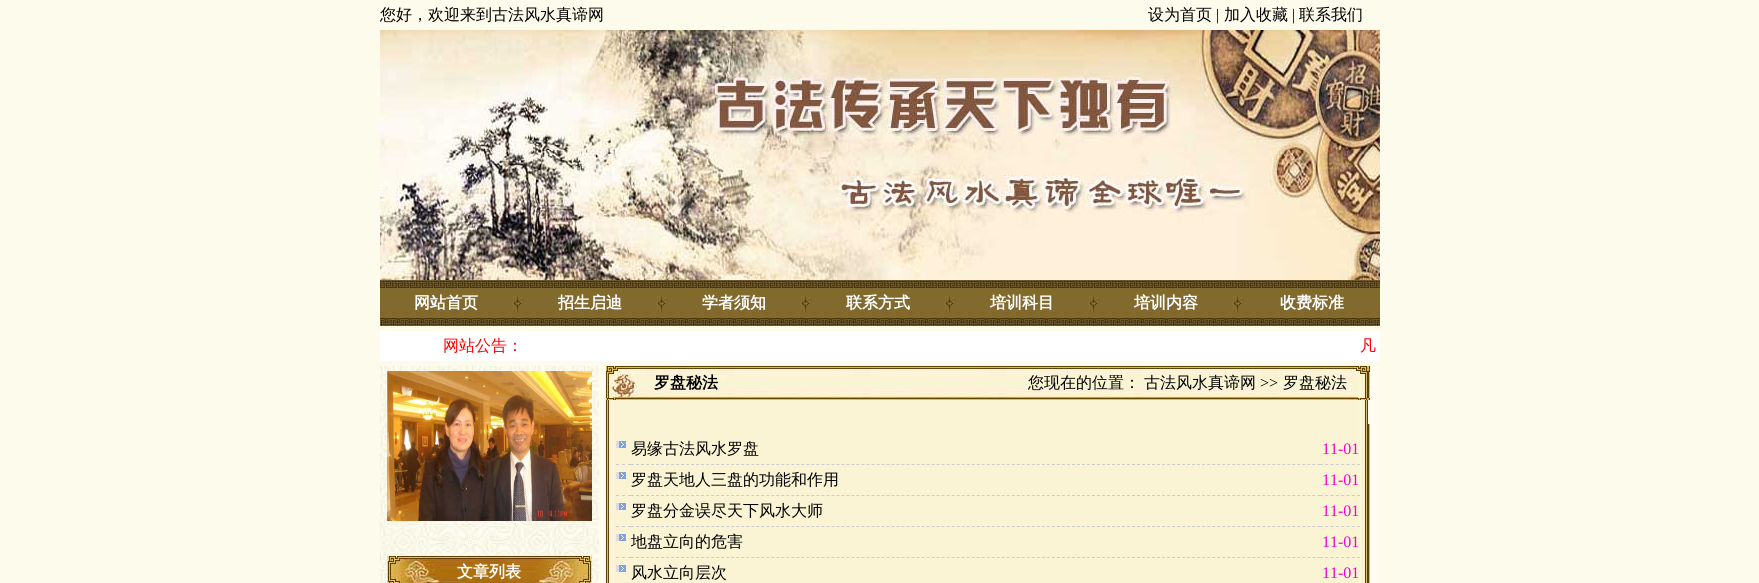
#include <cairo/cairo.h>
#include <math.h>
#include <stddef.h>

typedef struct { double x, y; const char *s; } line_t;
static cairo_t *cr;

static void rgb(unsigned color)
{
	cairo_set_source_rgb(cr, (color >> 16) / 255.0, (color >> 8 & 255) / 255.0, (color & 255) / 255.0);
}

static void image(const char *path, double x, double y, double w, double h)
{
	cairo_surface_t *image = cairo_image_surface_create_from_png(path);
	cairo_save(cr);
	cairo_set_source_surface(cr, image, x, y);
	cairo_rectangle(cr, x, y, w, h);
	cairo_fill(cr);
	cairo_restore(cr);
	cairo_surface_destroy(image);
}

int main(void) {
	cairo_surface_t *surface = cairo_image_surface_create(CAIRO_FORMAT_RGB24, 1759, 583);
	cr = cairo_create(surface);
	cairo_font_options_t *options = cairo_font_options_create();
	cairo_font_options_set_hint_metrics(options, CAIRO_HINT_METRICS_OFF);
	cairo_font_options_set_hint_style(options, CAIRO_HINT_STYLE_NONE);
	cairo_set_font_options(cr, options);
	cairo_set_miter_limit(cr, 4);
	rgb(0xfdfbec);
	cairo_paint(cr);
	image("img/1.png", 380, 30, 1000, 250);
	image("img/2.png", 380, 280, 132, 46);
	image("img/3.png", 512, 280, 12, 46);
	image("img/2.png", 524, 280, 132, 46);
	image("img/3.png", 656, 280, 12, 46);
	image("img/2.png", 668, 280, 132, 46);
	image("img/3.png", 800, 280, 12, 46);
	image("img/2.png", 812, 280, 132, 46);
	image("img/3.png", 944, 280, 12, 46);
	image("img/2.png", 956, 280, 132, 46);
	image("img/3.png", 1088, 280, 12, 46);
	image("img/2.png", 1100, 280, 132, 46);
	image("img/3.png", 1232, 280, 12, 46);
	image("img/4.png", 1244, 280, 136, 46);
	rgb(0xffffff);
	cairo_rectangle(cr, 380, 331, 1000, 30);
	cairo_fill(cr);
	rgb(0xfffbf0);
	cairo_rectangle(cr, 599, 366, 781, 217);
	cairo_fill(cr);
	image("img/5.png", 380, 366, 219, 217);
	image("img/6.png", 387, 371, 205, 150);
	image("img/7.png", 387, 556, 205, 27);
	image("img/8.png", 606, 366, 764, 34);
	image("img/9.png", 606, 400, 762, 24);
	image("img/10.png", 606, 424, 764, 159);
	cairo_new_path(cr);
	cairo_move_to(cr, 616, 464.5);
	cairo_line_to(cr, 619, 464.5);
	cairo_move_to(cr, 622, 464.5);
	cairo_line_to(cr, 625, 464.5);
	cairo_move_to(cr, 628, 464.5);
	cairo_line_to(cr, 631, 464.5);
	rgb(0xcccccc);
	cairo_set_line_width(cr, 1);
	cairo_stroke(cr);
	image("img/11.png", 616, 441, 10, 7);
	cairo_new_path(cr);
	cairo_move_to(cr, 631, 464.5);
	cairo_line_to(cr, 1320, 464.5);
	cairo_set_dash(cr, (double[]){3, 2.01}, 2, 0);
	cairo_stroke(cr);
	cairo_new_path(cr);
	cairo_move_to(cr, 1320, 464.5);
	cairo_line_to(cr, 1360, 464.5);
	cairo_set_dash(cr, (double[]){3, 2.29}, 2, 0);
	cairo_stroke(cr);
	cairo_new_path(cr);
	cairo_move_to(cr, 616, 495.5);
	cairo_line_to(cr, 619, 495.5);
	cairo_move_to(cr, 622, 495.5);
	cairo_line_to(cr, 625, 495.5);
	cairo_move_to(cr, 628, 495.5);
	cairo_line_to(cr, 631, 495.5);
	cairo_set_dash(cr, NULL, 0, 0);
	cairo_stroke(cr);
	image("img/11.png", 616, 472, 10, 7);
	cairo_new_path(cr);
	cairo_move_to(cr, 631, 495.5);
	cairo_line_to(cr, 1320, 495.5);
	cairo_set_dash(cr, (double[]){3, 2.01}, 2, 0);
	cairo_stroke(cr);
	cairo_new_path(cr);
	cairo_move_to(cr, 1320, 495.5);
	cairo_line_to(cr, 1360, 495.5);
	cairo_set_dash(cr, (double[]){3, 2.29}, 2, 0);
	cairo_stroke(cr);
	cairo_new_path(cr);
	cairo_move_to(cr, 616, 526.5);
	cairo_line_to(cr, 619, 526.5);
	cairo_move_to(cr, 622, 526.5);
	cairo_line_to(cr, 625, 526.5);
	cairo_move_to(cr, 628, 526.5);
	cairo_line_to(cr, 631, 526.5);
	cairo_set_dash(cr, NULL, 0, 0);
	cairo_stroke(cr);
	image("img/11.png", 616, 503, 10, 7);
	cairo_new_path(cr);
	cairo_move_to(cr, 631, 526.5);
	cairo_line_to(cr, 1320, 526.5);
	cairo_set_dash(cr, (double[]){3, 2.01}, 2, 0);
	cairo_stroke(cr);
	cairo_new_path(cr);
	cairo_move_to(cr, 1320, 526.5);
	cairo_line_to(cr, 1360, 526.5);
	cairo_set_dash(cr, (double[]){3, 2.29}, 2, 0);
	cairo_stroke(cr);
	cairo_new_path(cr);
	cairo_move_to(cr, 616, 557.5);
	cairo_line_to(cr, 619, 557.5);
	cairo_move_to(cr, 622, 557.5);
	cairo_line_to(cr, 625, 557.5);
	cairo_move_to(cr, 628, 557.5);
	cairo_line_to(cr, 631, 557.5);
	cairo_set_dash(cr, NULL, 0, 0);
	cairo_stroke(cr);
	image("img/11.png", 616, 534, 10, 7);
	cairo_new_path(cr);
	cairo_move_to(cr, 631, 557.5);
	cairo_line_to(cr, 1320, 557.5);
	cairo_set_dash(cr, (double[]){3, 2.01}, 2, 0);
	cairo_stroke(cr);
	cairo_new_path(cr);
	cairo_move_to(cr, 1320, 557.5);
	cairo_line_to(cr, 1360, 557.5);
	cairo_set_dash(cr, (double[]){3, 2.29}, 2, 0);
	cairo_stroke(cr);
	image("img/11.png", 616, 565, 10, 7);
	cairo_select_font_face(cr, "WenQuanYi Zen Hei Medium", CAIRO_FONT_SLANT_NORMAL, CAIRO_FONT_WEIGHT_NORMAL);
	cairo_set_font_size(cr, 16);
	rgb(0x000000);
	cairo_move_to(cr, 380, 20);
	cairo_show_text(cr, "您好，欢迎来到古法风水真谛网");
	cairo_move_to(cr, 1148, 20);
	cairo_show_text(cr, "设为首页");
	cairo_select_font_face(cr, "Liberation Serif", CAIRO_FONT_SLANT_NORMAL, CAIRO_FONT_WEIGHT_NORMAL);
	cairo_move_to(cr, 1216, 20);
	cairo_show_text(cr, "|");
	cairo_select_font_face(cr, "WenQuanYi Zen Hei Medium", CAIRO_FONT_SLANT_NORMAL, CAIRO_FONT_WEIGHT_NORMAL);
	cairo_move_to(cr, 1224, 20);
	cairo_show_text(cr, "加入收藏");
	cairo_select_font_face(cr, "Liberation Serif", CAIRO_FONT_SLANT_NORMAL, CAIRO_FONT_WEIGHT_NORMAL);
	cairo_move_to(cr, 1292, 20);
	cairo_show_text(cr, "|");
	cairo_select_font_face(cr, "WenQuanYi Zen Hei Medium", CAIRO_FONT_SLANT_NORMAL, CAIRO_FONT_WEIGHT_NORMAL);
	cairo_move_to(cr, 1299, 20);
	cairo_show_text(cr, "联系我们");
	cairo_select_font_face(cr, "WenQuanYi Zen Hei", CAIRO_FONT_SLANT_NORMAL, CAIRO_FONT_WEIGHT_BOLD);
	rgb(0xffffff);
	{
		static const line_t items[] = {
			{414, 308, "网站首页"},
			{558, 308, "招生启迪"},
			{702, 308, "学者须知"},
			{846, 308, "联系方式"},
			{990, 308, "培训科目"},
			{1134, 308, "培训内容"},
			{1280, 308, "收费标准"},
		};
		for (size_t i = 0; i < sizeof items / sizeof *items; i++) {
			cairo_move_to(cr, items[i].x, items[i].y);
			cairo_show_text(cr, items[i].s);
		}
	}
	cairo_select_font_face(cr, "WenQuanYi Zen Hei Medium", CAIRO_FONT_SLANT_NORMAL, CAIRO_FONT_WEIGHT_NORMAL);
	rgb(0xff0000);
	cairo_move_to(cr, 443, 351);
	cairo_show_text(cr, "网站公告：");
	cairo_move_to(cr, 1360, 351);
	cairo_show_text(cr, "凡");
	cairo_select_font_face(cr, "WenQuanYi Zen Hei", CAIRO_FONT_SLANT_NORMAL, CAIRO_FONT_WEIGHT_BOLD);
	rgb(0xffffff);
	cairo_move_to(cr, 457, 577);
	cairo_show_text(cr, "文章列表");
	rgb(0x000000);
	cairo_move_to(cr, 654, 388);
	cairo_show_text(cr, "罗盘秘法");
	cairo_select_font_face(cr, "WenQuanYi Zen Hei Medium", CAIRO_FONT_SLANT_NORMAL, CAIRO_FONT_WEIGHT_NORMAL);
	cairo_move_to(cr, 1028, 388);
	cairo_show_text(cr, "您现在的位置：");
	cairo_move_to(cr, 1144, 388);
	cairo_show_text(cr, "古法风水真谛网");
	cairo_select_font_face(cr, "Liberation Serif", CAIRO_FONT_SLANT_NORMAL, CAIRO_FONT_WEIGHT_NORMAL);
	cairo_move_to(cr, 1260, 388);
	cairo_show_text(cr, ">>");
	cairo_select_font_face(cr, "WenQuanYi Zen Hei Medium", CAIRO_FONT_SLANT_NORMAL, CAIRO_FONT_WEIGHT_NORMAL);
	cairo_move_to(cr, 1283, 388);
	cairo_show_text(cr, "罗盘秘法");
	cairo_move_to(cr, 631, 454);
	cairo_show_text(cr, "易缘古法风水罗盘");
	cairo_select_font_face(cr, "Liberation Serif", CAIRO_FONT_SLANT_NORMAL, CAIRO_FONT_WEIGHT_NORMAL);
	rgb(0xf500d0);
	cairo_move_to(cr, 1322, 454);
	cairo_show_text(cr, "11-01");
	cairo_select_font_face(cr, "WenQuanYi Zen Hei Medium", CAIRO_FONT_SLANT_NORMAL, CAIRO_FONT_WEIGHT_NORMAL);
	rgb(0x000000);
	cairo_move_to(cr, 631, 485);
	cairo_show_text(cr, "罗盘天地人三盘的功能和作用");
	cairo_select_font_face(cr, "Liberation Serif", CAIRO_FONT_SLANT_NORMAL, CAIRO_FONT_WEIGHT_NORMAL);
	rgb(0xf500d0);
	cairo_move_to(cr, 1322, 485);
	cairo_show_text(cr, "11-01");
	cairo_select_font_face(cr, "WenQuanYi Zen Hei Medium", CAIRO_FONT_SLANT_NORMAL, CAIRO_FONT_WEIGHT_NORMAL);
	rgb(0x000000);
	cairo_move_to(cr, 631, 516);
	cairo_show_text(cr, "罗盘分金误尽天下风水大师");
	cairo_select_font_face(cr, "Liberation Serif", CAIRO_FONT_SLANT_NORMAL, CAIRO_FONT_WEIGHT_NORMAL);
	rgb(0xf500d0);
	cairo_move_to(cr, 1322, 516);
	cairo_show_text(cr, "11-01");
	cairo_select_font_face(cr, "WenQuanYi Zen Hei Medium", CAIRO_FONT_SLANT_NORMAL, CAIRO_FONT_WEIGHT_NORMAL);
	rgb(0x000000);
	cairo_move_to(cr, 631, 547);
	cairo_show_text(cr, "地盘立向的危害");
	cairo_select_font_face(cr, "Liberation Serif", CAIRO_FONT_SLANT_NORMAL, CAIRO_FONT_WEIGHT_NORMAL);
	rgb(0xf500d0);
	cairo_move_to(cr, 1322, 547);
	cairo_show_text(cr, "11-01");
	cairo_select_font_face(cr, "WenQuanYi Zen Hei Medium", CAIRO_FONT_SLANT_NORMAL, CAIRO_FONT_WEIGHT_NORMAL);
	rgb(0x000000);
	cairo_move_to(cr, 631, 578);
	cairo_show_text(cr, "风水立向层次");
	cairo_select_font_face(cr, "Liberation Serif", CAIRO_FONT_SLANT_NORMAL, CAIRO_FONT_WEIGHT_NORMAL);
	rgb(0xf500d0);
	cairo_move_to(cr, 1322, 578);
	cairo_show_text(cr, "11-01");
	cairo_surface_write_to_png(surface, "page.png");
	cairo_font_options_destroy(options);
	cairo_destroy(cr);
	cairo_surface_destroy(surface);
	return 0;
}
